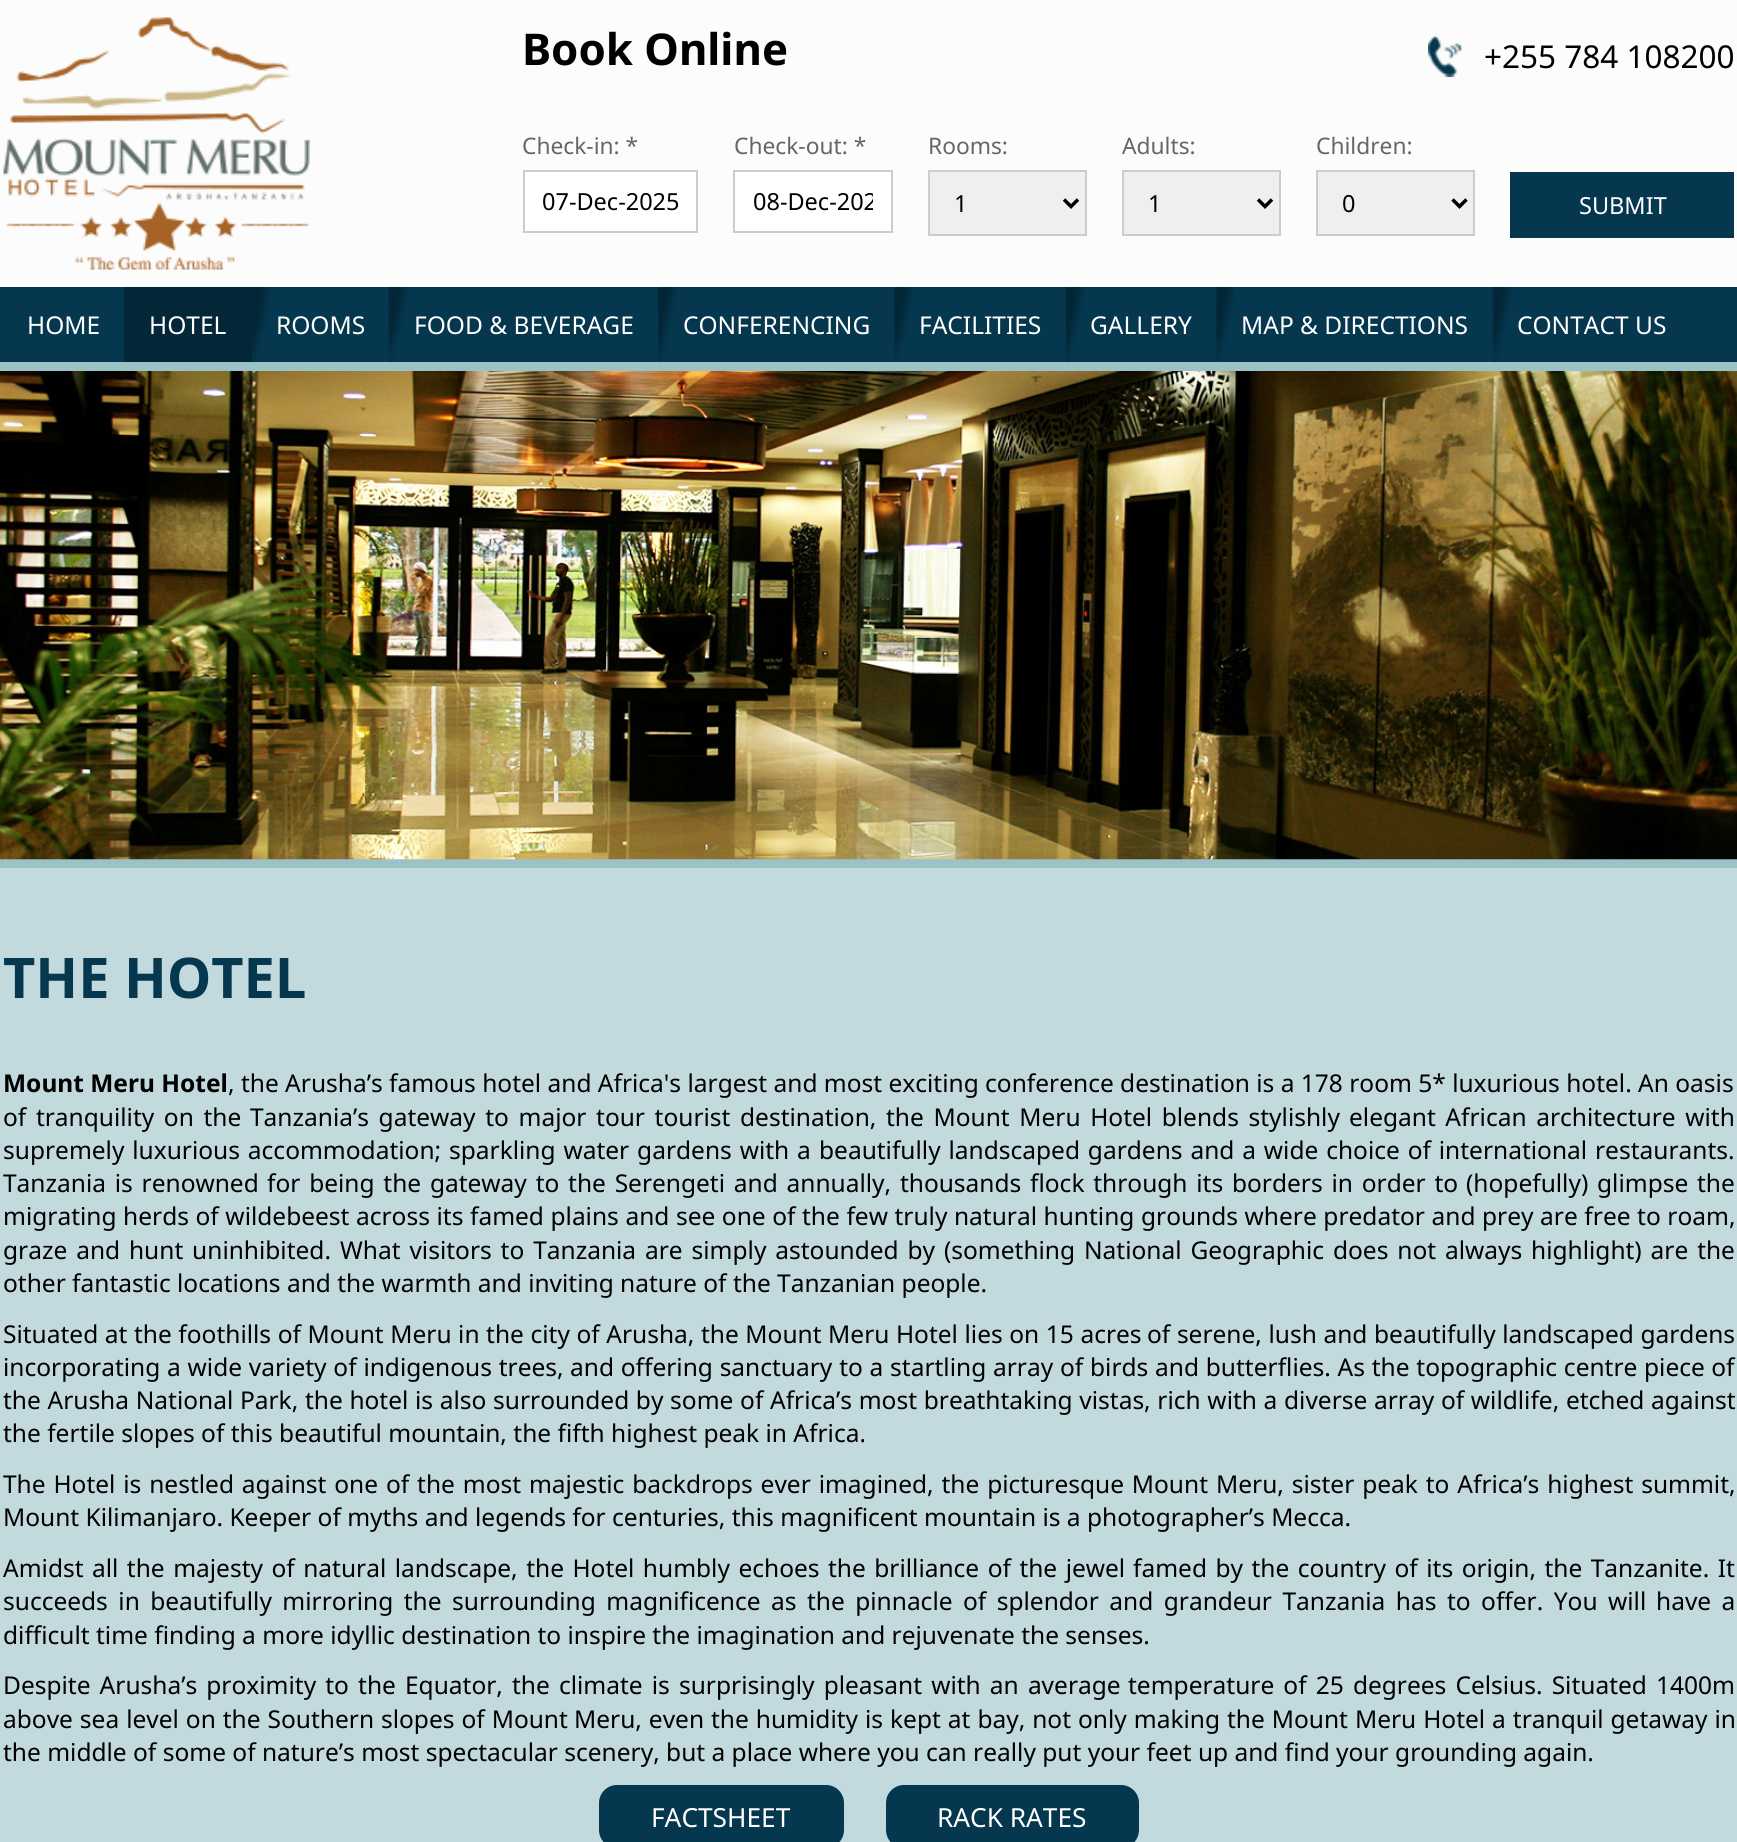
#include <cairo/cairo.h>
#include <math.h>
#include <stddef.h>

typedef struct { double x, y; const char *s; } line_t;
typedef struct { double x, y, w, h; unsigned color; } box_t;
static cairo_t *cr;

static void rgb(unsigned color)
{
	cairo_set_source_rgb(cr, (color >> 16) / 255.0, (color >> 8 & 255) / 255.0, (color & 255) / 255.0);
}

static void tracked(double x, double y, const char *s, double letter, double word)
{
	cairo_move_to(cr, x, y);
	while (*s) {
		char ch[5] = {0};
		int n = 0;
		do ch[n++] = *s++; while ((*s & 0xC0) == 0x80);
		cairo_show_text(cr, ch);
		cairo_rel_move_to(cr, letter + word * (*ch == ' '), 0);
	}
}

static void rrect(double x, double y, double w, double h, double r)
{
	cairo_new_sub_path(cr);
	cairo_arc(cr, x + w - r, y + h - r, r, 0, M_PI / 2);
	cairo_arc(cr, x + r, y + h - r, r, M_PI / 2, M_PI);
	cairo_arc(cr, x + r, y + r, r, M_PI, 1.5 * M_PI);
	cairo_arc(cr, x + w - r, y + r, r, 1.5 * M_PI, 2 * M_PI);
	cairo_close_path(cr);
}

static void image(const char *path, double x, double y, double w, double h)
{
	cairo_surface_t *image = cairo_image_surface_create_from_png(path);
	cairo_save(cr);
	cairo_set_source_surface(cr, image, x, y);
	cairo_rectangle(cr, x, y, w, h);
	cairo_fill(cr);
	cairo_restore(cr);
	cairo_surface_destroy(image);
}

int main(void) {
	cairo_surface_t *surface = cairo_image_surface_create(CAIRO_FORMAT_RGB24, 1737, 1842);
	cr = cairo_create(surface);
	cairo_font_options_t *options = cairo_font_options_create();
	cairo_font_options_set_hint_metrics(options, CAIRO_HINT_METRICS_OFF);
	cairo_font_options_set_hint_style(options, CAIRO_HINT_STYLE_NONE);
	cairo_set_font_options(cr, options);
	cairo_set_miter_limit(cr, 4);
	rgb(0xc2dadd);
	cairo_paint(cr);
	rgb(0xfcfcfc);
	cairo_rectangle(cr, 0, 0, 1737, 287);
	cairo_fill(cr);
	image("img/1.png", 3, 17, 307, 253);
	rgb(0xffffff);
	cairo_rectangle(cr, 524, 171, 173, 61);
	cairo_fill_preserve(cr);
	rgb(0xcccccc);
	cairo_stroke(cr);
	rgb(0xffffff);
	cairo_rectangle(cr, 734, 171, 158, 61);
	cairo_fill_preserve(cr);
	rgb(0xcccccc);
	cairo_stroke(cr);
	rgb(0xefefef);
	cairo_rectangle(cr, 929, 171, 157, 64);
	cairo_fill_preserve(cr);
	rgb(0xcccccc);
	cairo_stroke(cr);
	cairo_new_path(cr);
	cairo_move_to(cr, 1064, 199.5);
	cairo_line_to(cr, 1071, 206.5);
	cairo_line_to(cr, 1078, 199.5);
	rgb(0x000000);
	cairo_set_line_width(cr, 3.5);
	cairo_stroke(cr);
	rgb(0xefefef);
	cairo_rectangle(cr, 1123, 171, 157, 64);
	cairo_fill_preserve(cr);
	rgb(0xcccccc);
	cairo_set_line_width(cr, 2);
	cairo_stroke(cr);
	cairo_new_path(cr);
	cairo_move_to(cr, 1258, 199.5);
	cairo_line_to(cr, 1265, 206.5);
	cairo_line_to(cr, 1272, 199.5);
	rgb(0x000000);
	cairo_set_line_width(cr, 3.5);
	cairo_stroke(cr);
	rgb(0xefefef);
	cairo_rectangle(cr, 1317, 171, 157, 64);
	cairo_fill_preserve(cr);
	rgb(0xcccccc);
	cairo_set_line_width(cr, 2);
	cairo_stroke(cr);
	cairo_new_path(cr);
	cairo_move_to(cr, 1452.5, 199.5);
	cairo_line_to(cr, 1459.5, 206.5);
	cairo_line_to(cr, 1466.5, 199.5);
	rgb(0x000000);
	cairo_set_line_width(cr, 3.5);
	cairo_stroke(cr);
	rgb(0x05374e);
	cairo_rectangle(cr, 1510, 172, 224, 66);
	cairo_fill(cr);
	image("img/2.png", 1428, 36, 34, 41);
	{
		static const box_t items[] = {
			{0, 287, 1737, 75, 0x05374e},
			{0, 362, 1737, 9, 0x9ac2c7},
			{124, 287, 128, 75, 0x042737},
		};
		for (size_t i = 0; i < sizeof items / sizeof *items; i++) {
			rgb(items[i].color);
			cairo_rectangle(cr, items[i].x, items[i].y, items[i].w, items[i].h);
			cairo_fill(cr);
		}
	}
	image("img/3.png", 124, 362, 4, 1);
	image("img/4.png", 252, 287, 19, 76);
	image("img/5.png", 388, 287, 19, 76);
	image("img/4.png", 658, 287, 19, 76);
	image("img/6.png", 894, 287, 19, 76);
	image("img/7.png", 1065, 287, 20, 76);
	image("img/6.png", 1216, 287, 19, 76);
	image("img/8.png", 1492, 287, 20, 76);
	rgb(0x9ac2c7);
	cairo_rectangle(cr, 0, 859, 1737, 9);
	cairo_fill(cr);
	image("img/9.png", 0, 371, 1737, 489);
	rgb(0x05374e);
	rrect(599, 1785, 245, 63, 18);
	cairo_fill(cr);
	rrect(886, 1785, 253, 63, 18);
	cairo_fill(cr);
	cairo_select_font_face(cr, "Noto Sans", CAIRO_FONT_SLANT_NORMAL, CAIRO_FONT_WEIGHT_BOLD);
	cairo_set_font_size(cr, 43.75);
	rgb(0x000000);
	cairo_move_to(cr, 522, 65);
	cairo_show_text(cr, "Book Online");
	cairo_select_font_face(cr, "Noto Sans", CAIRO_FONT_SLANT_NORMAL, CAIRO_FONT_WEIGHT_NORMAL);
	cairo_set_font_size(cr, 22.75);
	rgb(0x666666);
	cairo_move_to(cr, 522, 154);
	cairo_show_text(cr, "Check-in: *");
	cairo_save(cr);
	cairo_rectangle(cr, 543, 186, 136, 31);
	cairo_clip(cr);
	cairo_set_font_size(cr, 23.5);
	rgb(0x000000);
	cairo_move_to(cr, 542, 210);
	cairo_show_text(cr, "07-Dec-2025");
	cairo_restore(cr);
	cairo_move_to(cr, 734, 154);
	cairo_show_text(cr, "Check-out: *");
	cairo_save(cr);
	cairo_rectangle(cr, 753, 186, 120, 31);
	cairo_clip(cr);
	cairo_set_font_size(cr, 23.5);
	rgb(0x000000);
	cairo_move_to(cr, 753, 210);
	cairo_show_text(cr, "08-Dec-202");
	cairo_restore(cr);
	cairo_move_to(cr, 928, 154);
	cairo_show_text(cr, "Rooms:");
	cairo_set_font_size(cr, 23.5);
	rgb(0x000000);
	cairo_move_to(cr, 954, 212);
	cairo_show_text(cr, "1");
	cairo_set_font_size(cr, 22.75);
	rgb(0x666666);
	cairo_move_to(cr, 1122, 154);
	cairo_show_text(cr, "Adults:");
	cairo_set_font_size(cr, 23.5);
	rgb(0x000000);
	cairo_move_to(cr, 1148, 212);
	cairo_show_text(cr, "1");
	cairo_set_font_size(cr, 22.75);
	rgb(0x666666);
	cairo_move_to(cr, 1316, 154);
	cairo_show_text(cr, "Children:");
	cairo_set_font_size(cr, 23.5);
	rgb(0x000000);
	cairo_move_to(cr, 1342, 212);
	cairo_show_text(cr, "0");
	rgb(0xffffff);
	cairo_move_to(cr, 1579, 214);
	cairo_show_text(cr, "SUBMIT");
	cairo_set_font_size(cr, 31.5);
	rgb(0x000000);
	cairo_move_to(cr, 1484, 68);
	cairo_show_text(cr, "+255 784 108200");
	cairo_set_font_size(cr, 24.5);
	rgb(0xffffff);
	{
		static const line_t items[] = {
			{27, 334, "HOME"},
			{149, 334, "HOTEL"},
			{276, 334, "ROOMS"},
			{414, 334, "FOOD & BEVERAGE"},
			{683, 334, "CONFERENCING"},
			{919, 334, "FACILITIES"},
			{1090, 334, "GALLERY"},
			{1241, 334, "MAP & DIRECTIONS"},
			{1517, 334, "CONTACT US"},
		};
		for (size_t i = 0; i < sizeof items / sizeof *items; i++) {
			cairo_move_to(cr, items[i].x, items[i].y);
			cairo_show_text(cr, items[i].s);
		}
	}
	cairo_select_font_face(cr, "Noto Sans", CAIRO_FONT_SLANT_NORMAL, CAIRO_FONT_WEIGHT_BOLD);
	cairo_set_font_size(cr, 56);
	rgb(0x05374e);
	cairo_move_to(cr, 3, 998);
	cairo_show_text(cr, "THE HOTEL");
	cairo_set_font_size(cr, 24.5);
	rgb(0x000000);
	cairo_move_to(cr, 3, 1092);
	cairo_show_text(cr, "Mount Meru Hotel");
	cairo_select_font_face(cr, "Noto Sans", CAIRO_FONT_SLANT_NORMAL, CAIRO_FONT_WEIGHT_NORMAL);
	cairo_move_to(cr, 228, 1092);
	cairo_show_text(cr, ", the Arusha’s famous hotel and Africa's largest and most exciting conference destination is a 178 room 5* luxurious hotel. An oasis");
	{
		static const line_t items[] = {
			{3, 1126, "of tranquility on the"},
			{250, 1126, "Tanzania’s gateway to major tour tourist destination, the Mount Meru Hotel blends stylishly"},
			{1349, 1126, "elegant African architecture with"},
		};
		for (size_t i = 0; i < sizeof items / sizeof *items; i++) {
			tracked(items[i].x, items[i].y, items[i].s, 0, 3.25);
		}
	}
	tracked(3, 1159, "supremely luxurious accommodation; sparkling water gardens with a", 0, 1.5);
	tracked(819, 1159, "beautifully landscaped gardens and a wide choice of international restaurants.", 0, 1.5);
	{
		static const line_t items[] = {
			{3, 1192, "Tanzania is renowned"},
			{267, 1192, "for being the gateway to the Serengeti and annually, thousands flock through its borders in order to"},
			{1466, 1192, "(hopefully) glimpse the"},
		};
		for (size_t i = 0; i < sizeof items / sizeof *items; i++) {
			tracked(items[i].x, items[i].y, items[i].s, 0, 2.4);
		}
	}
	tracked(3, 1225, "migrating herds of wildebeest across its famed plains and see one of the few truly natural hunting grounds where predator and prey are free to roam,", 0, 0.2);
	{
		static const line_t items[] = {
			{3, 1259, "graze and hunt uninhibited."},
			{340, 1259, "What visitors to Tanzania are simply astounded by (something National Geographic does not always"},
			{1531, 1259, "highlight) are the"},
		};
		for (size_t i = 0; i < sizeof items / sizeof *items; i++) {
			tracked(items[i].x, items[i].y, items[i].s, 0, 2.5);
		}
	}
	cairo_move_to(cr, 3, 1292);
	cairo_show_text(cr, "other fantastic locations and the warmth and inviting nature of the Tanzanian people.");
	tracked(3, 1343, "Situated at the foothills of Mount Meru in the city of Arusha, the Mount Meru Hotel lies on 15 acres", 0, 0.2);
	tracked(1147, 1343, "of serene, lush and beautifully landscaped gardens", 0, 0.25);
	tracked(3, 1376, "incorporating a wide variety of indigenous trees,", 0, 0.4);
	tracked(570, 1376, "and offering sanctuary to a startling array of birds and butterflies. As the topographic centre", 0, 0.4);
	cairo_move_to(cr, 1644, 1376);
	cairo_show_text(cr, "piece of");
	tracked(3, 1409, "the Arusha National Park, the hotel is also surrounded by some of Africa’s most breathtaking vistas, rich with a diverse array of wildlife, etched against", 0, 0.3);
	cairo_move_to(cr, 3, 1442);
	cairo_show_text(cr, "the fertile slopes of this beautiful mountain, the fifth highest peak in Africa.");
	tracked(3, 1493, "The Hotel is nestled against one of the most majestic backdrops ever imagined, the picturesque Mount", 0, 1.5);
	tracked(1216, 1493, "Meru, sister peak to Africa’s highest summit,", 0, 1.5);
	cairo_move_to(cr, 3, 1526);
	cairo_show_text(cr, "Mount Kilimanjaro. Keeper of myths and legends for centuries, this magnificent mountain is a photographer’s Mecca.");
	tracked(3, 1577, "Amidst all the majesty of natural landscape, the Hotel humbly echoes the brilliance of the jewel", 0, 2.1);
	tracked(1133, 1577, "famed by the country of its origin, the Tanzanite. It", 0, 2.1);
	{
		static const line_t items[] = {
			{3, 1610, "succeeds in beautifully mirroring the"},
			{452, 1610, "surrounding magnificence as the pinnacle of splendor and grandeur Tanzania has to offer. You will"},
			{1656, 1610, "have a"},
		};
		for (size_t i = 0; i < sizeof items / sizeof *items; i++) {
			tracked(items[i].x, items[i].y, items[i].s, 0, 4.1);
		}
	}
	cairo_move_to(cr, 3, 1644);
	cairo_show_text(cr, "difficult time finding a more idyllic destination to inspire the imagination and rejuvenate the senses.");
	tracked(3, 1694, "Despite Arusha’s proximity to the Equator, the climate is surprisingly pleasant with an average", 0, 2.75);
	tracked(1128, 1694, "temperature of 25 degrees Celsius. Situated 1400m", 0, 2.75);
	tracked(3, 1728, "above sea level on the Southern slopes of Mount", 0, 0.6);
	tracked(574, 1728, "Meru, even the humidity is kept at bay, not only making the Mount Meru Hotel a tranquil getaway in", 0, 0.6);
	cairo_move_to(cr, 3, 1761);
	cairo_show_text(cr, "the middle of some of nature’s most spectacular scenery, but a place where you can really put your feet up and find your grounding again.");
	cairo_set_font_size(cr, 26.25);
	rgb(0xffffff);
	cairo_move_to(cr, 651, 1827);
	cairo_show_text(cr, "FACTSHEET");
	cairo_move_to(cr, 937, 1827);
	cairo_show_text(cr, "RACK RATES");
	cairo_surface_write_to_png(surface, "page.png");
	cairo_font_options_destroy(options);
	cairo_destroy(cr);
	cairo_surface_destroy(surface);
	return 0;
}
